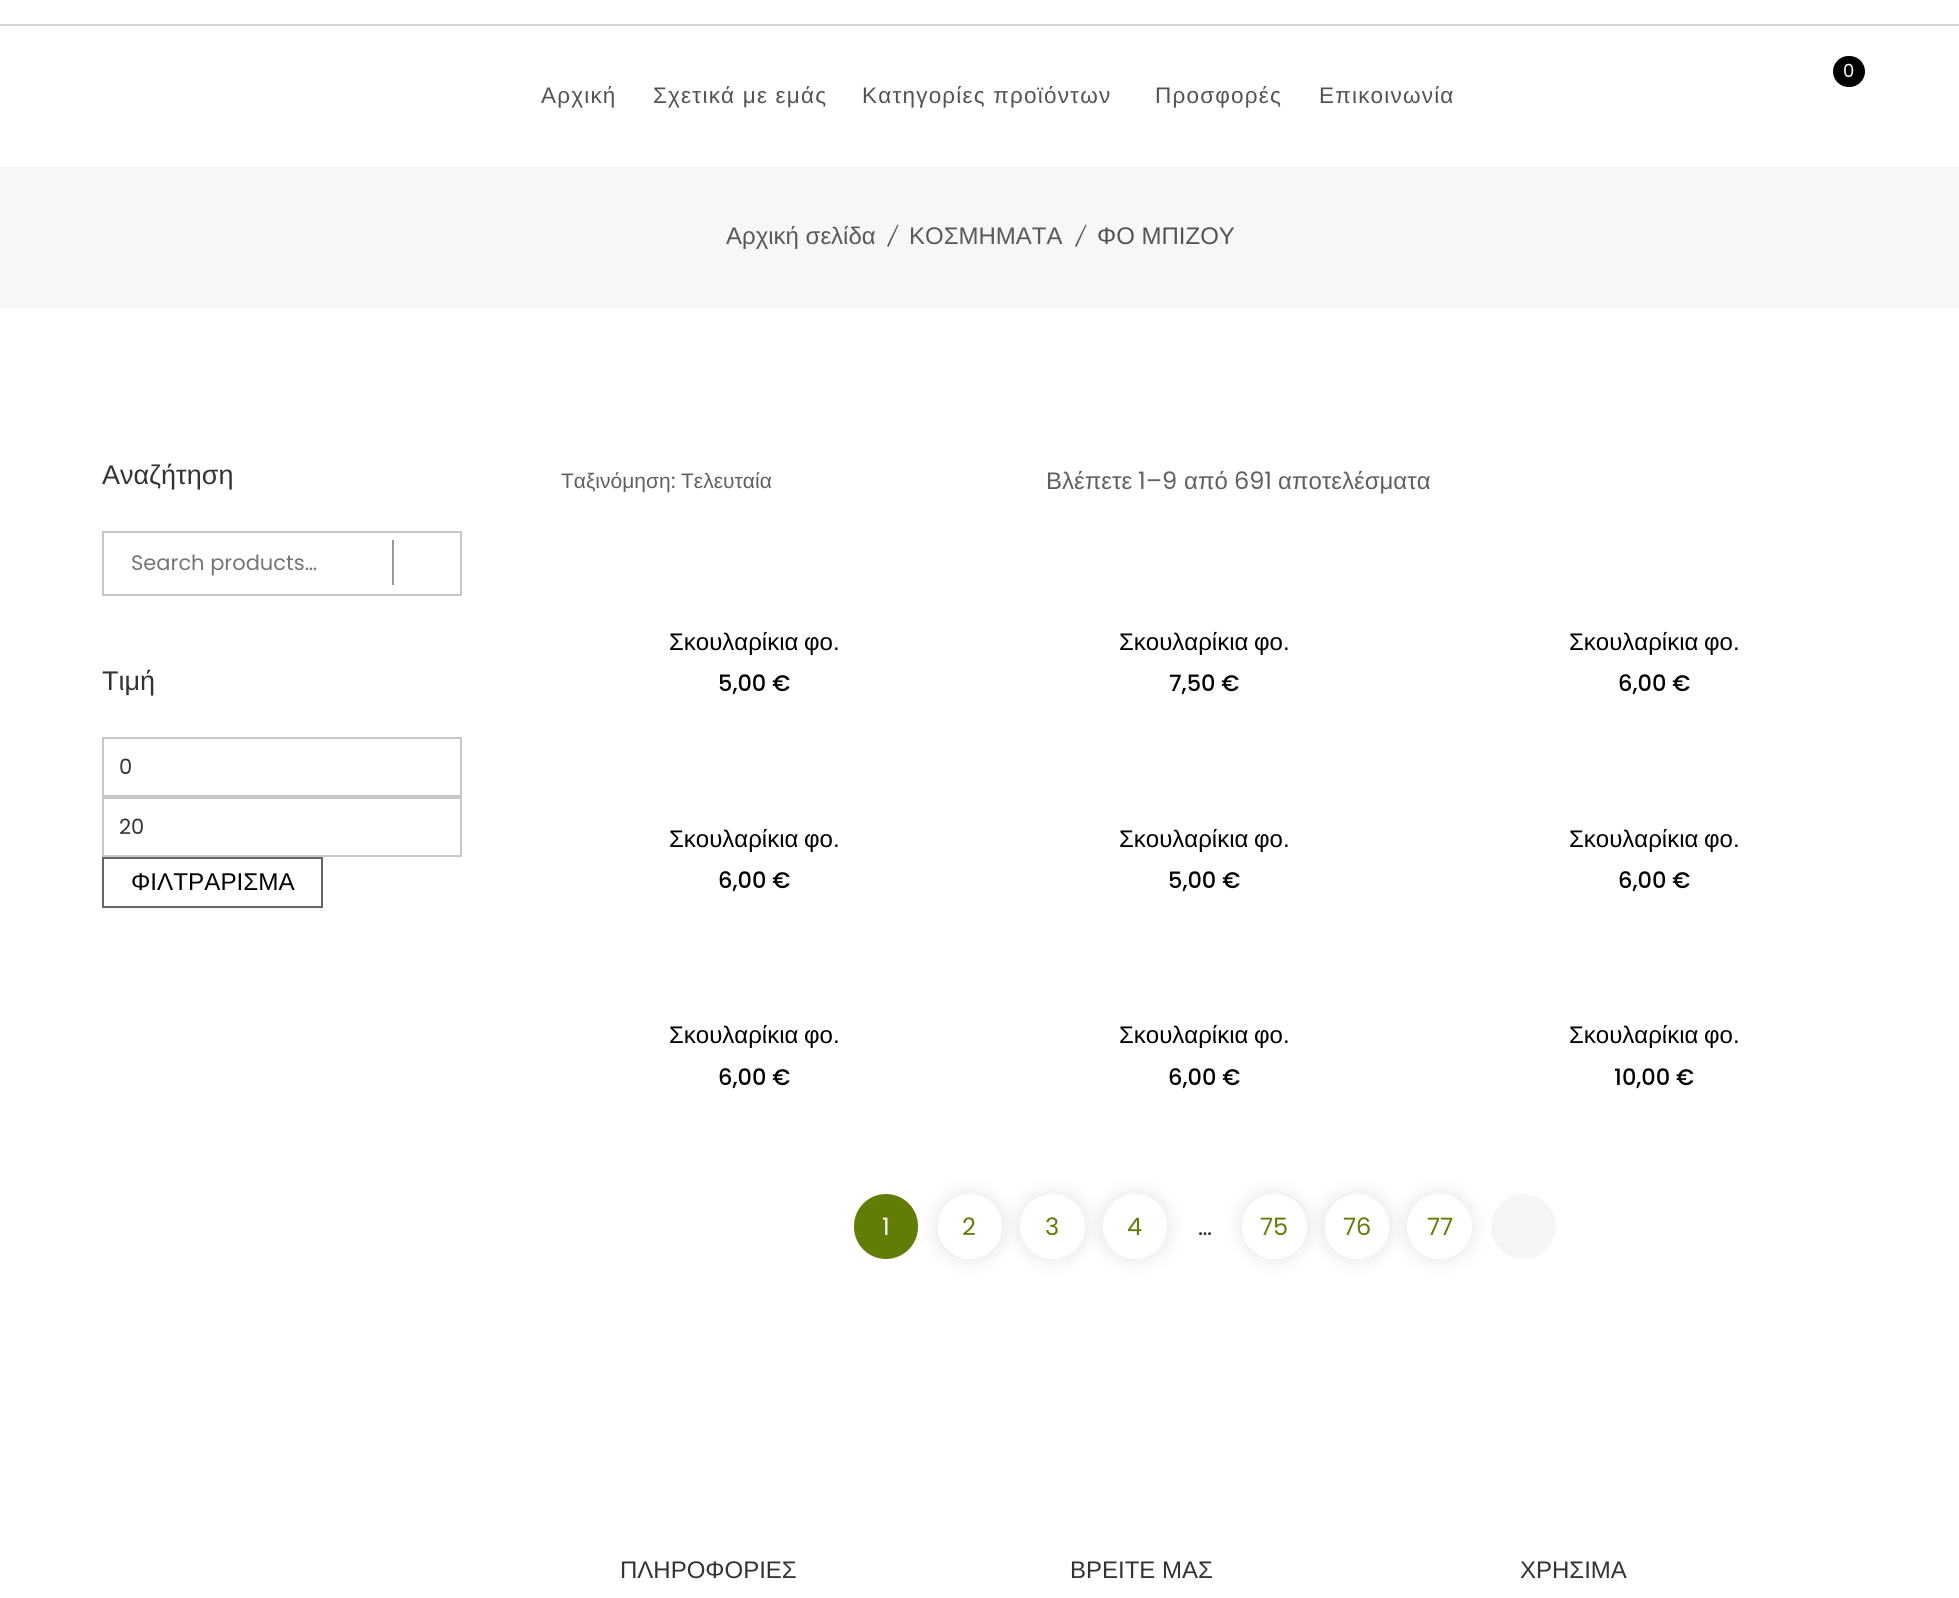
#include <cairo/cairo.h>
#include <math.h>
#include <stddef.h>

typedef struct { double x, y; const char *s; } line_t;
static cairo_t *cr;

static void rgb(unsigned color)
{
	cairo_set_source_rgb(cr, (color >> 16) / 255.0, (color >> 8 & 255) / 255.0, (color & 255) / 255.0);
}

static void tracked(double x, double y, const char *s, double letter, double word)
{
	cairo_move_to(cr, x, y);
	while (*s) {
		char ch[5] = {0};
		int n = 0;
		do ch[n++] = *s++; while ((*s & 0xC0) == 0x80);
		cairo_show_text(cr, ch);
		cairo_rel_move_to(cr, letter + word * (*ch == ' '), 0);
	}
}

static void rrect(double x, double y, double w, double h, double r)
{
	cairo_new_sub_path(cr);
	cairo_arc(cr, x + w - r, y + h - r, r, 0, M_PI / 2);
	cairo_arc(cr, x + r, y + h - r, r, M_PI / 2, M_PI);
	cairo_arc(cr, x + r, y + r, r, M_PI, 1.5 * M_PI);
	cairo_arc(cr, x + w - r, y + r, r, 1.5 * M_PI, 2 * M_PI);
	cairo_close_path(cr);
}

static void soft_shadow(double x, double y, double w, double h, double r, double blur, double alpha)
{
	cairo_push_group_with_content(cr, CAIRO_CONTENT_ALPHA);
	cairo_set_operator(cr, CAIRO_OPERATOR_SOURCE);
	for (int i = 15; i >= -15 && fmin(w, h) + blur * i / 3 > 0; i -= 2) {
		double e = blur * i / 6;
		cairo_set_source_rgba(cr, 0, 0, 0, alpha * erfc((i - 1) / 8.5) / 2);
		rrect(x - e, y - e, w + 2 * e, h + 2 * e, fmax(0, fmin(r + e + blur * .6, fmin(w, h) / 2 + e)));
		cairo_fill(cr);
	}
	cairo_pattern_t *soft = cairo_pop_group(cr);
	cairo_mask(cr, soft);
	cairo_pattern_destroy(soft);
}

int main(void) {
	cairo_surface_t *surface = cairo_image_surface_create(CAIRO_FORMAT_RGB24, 1959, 1598);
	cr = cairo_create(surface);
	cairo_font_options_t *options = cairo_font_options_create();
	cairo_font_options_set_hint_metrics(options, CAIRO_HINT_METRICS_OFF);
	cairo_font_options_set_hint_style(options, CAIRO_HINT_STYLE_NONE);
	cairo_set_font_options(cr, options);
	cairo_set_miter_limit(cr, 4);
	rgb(0xffffff);
	cairo_paint(cr);
	rgb(0xd5d4d4);
	cairo_rectangle(cr, 0, 24, 1959, 2);
	cairo_fill(cr);
	rgb(0x000000);
	rrect(1833, 56, 32, 31, 15.5);
	cairo_fill(cr);
	rgb(0xf7f7f7);
	cairo_rectangle(cr, 0, 167, 1959, 141);
	cairo_fill(cr);
	rgb(0x555555);
	cairo_new_path(cr);
	cairo_move_to(cr, 898.5, 225);
	cairo_line_to(cr, 888.5, 247);
	cairo_line_to(cr, 887, 246);
	cairo_line_to(cr, 897.5, 224.5);
	cairo_close_path(cr);
	cairo_fill(cr);
	cairo_new_path(cr);
	cairo_move_to(cr, 1086.5, 225);
	cairo_line_to(cr, 1076.5, 247);
	cairo_line_to(cr, 1075, 246);
	cairo_line_to(cr, 1085.5, 224.5);
	cairo_close_path(cr);
	cairo_fill(cr);
	cairo_rectangle(cr, 103, 532, 358, 63);
	rgb(0xc8c6c6);
	cairo_stroke(cr);
	rgb(0x999999);
	cairo_rectangle(cr, 392, 540, 2, 45);
	cairo_fill(cr);
	cairo_rectangle(cr, 103, 738, 358, 58);
	rgb(0xc8c6c6);
	cairo_stroke(cr);
	cairo_rectangle(cr, 103, 798, 358, 58);
	cairo_stroke(cr);
	cairo_rectangle(cr, 103, 858, 219, 49);
	rgb(0x666666);
	cairo_stroke(cr);
	rgb(0x617d05);
	rrect(854, 1194, 64, 65, 32);
	cairo_fill(cr);
	cairo_save(cr);
	cairo_set_fill_rule(cr, CAIRO_FILL_RULE_EVEN_ODD);
	cairo_new_path(cr);
	cairo_move_to(cr, 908, 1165);
	cairo_line_to(cr, 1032, 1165);
	cairo_line_to(cr, 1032, 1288);
	cairo_line_to(cr, 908, 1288);
	cairo_close_path(cr);
	cairo_move_to(cr, 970, 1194);
	cairo_curve_to(cr, 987.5, 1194, 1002, 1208.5, 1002, 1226);
	cairo_line_to(cr, 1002, 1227);
	cairo_curve_to(cr, 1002, 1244.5, 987.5, 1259, 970, 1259);
	cairo_curve_to(cr, 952.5, 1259, 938, 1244.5, 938, 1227);
	cairo_line_to(cr, 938, 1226);
	cairo_curve_to(cr, 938, 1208.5, 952.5, 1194, 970, 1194);
	cairo_close_path(cr);
	cairo_clip(cr);
	rgb(0x000000);
	soft_shadow(936, 1193, 68, 67, 33.5, 9, 0.1);
	cairo_restore(cr);
	cairo_save(cr);
	cairo_set_fill_rule(cr, CAIRO_FILL_RULE_EVEN_ODD);
	cairo_new_path(cr);
	cairo_move_to(cr, 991, 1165);
	cairo_line_to(cr, 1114, 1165);
	cairo_line_to(cr, 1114, 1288);
	cairo_line_to(cr, 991, 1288);
	cairo_close_path(cr);
	cairo_move_to(cr, 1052.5, 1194);
	cairo_curve_to(cr, 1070.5, 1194, 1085, 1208.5, 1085, 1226.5);
	cairo_curve_to(cr, 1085, 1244.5, 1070.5, 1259, 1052.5, 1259);
	cairo_curve_to(cr, 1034.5, 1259, 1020, 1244.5, 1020, 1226.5);
	cairo_curve_to(cr, 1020, 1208.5, 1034.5, 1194, 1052.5, 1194);
	cairo_close_path(cr);
	cairo_clip(cr);
	rgb(0x000000);
	soft_shadow(1019, 1193, 67, 67, 33.5, 9, 0.1);
	cairo_restore(cr);
	cairo_save(cr);
	cairo_set_fill_rule(cr, CAIRO_FILL_RULE_EVEN_ODD);
	cairo_new_path(cr);
	cairo_move_to(cr, 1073, 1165);
	cairo_line_to(cr, 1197, 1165);
	cairo_line_to(cr, 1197, 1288);
	cairo_line_to(cr, 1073, 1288);
	cairo_close_path(cr);
	cairo_move_to(cr, 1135, 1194);
	cairo_curve_to(cr, 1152.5, 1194, 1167, 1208.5, 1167, 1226);
	cairo_line_to(cr, 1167, 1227);
	cairo_curve_to(cr, 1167, 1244.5, 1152.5, 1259, 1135, 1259);
	cairo_curve_to(cr, 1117.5, 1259, 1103, 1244.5, 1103, 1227);
	cairo_line_to(cr, 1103, 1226);
	cairo_curve_to(cr, 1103, 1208.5, 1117.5, 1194, 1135, 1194);
	cairo_close_path(cr);
	cairo_clip(cr);
	rgb(0x000000);
	soft_shadow(1101, 1193, 68, 67, 33.5, 9, 0.1);
	cairo_restore(cr);
	cairo_save(cr);
	cairo_set_fill_rule(cr, CAIRO_FILL_RULE_EVEN_ODD);
	cairo_new_path(cr);
	cairo_move_to(cr, 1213, 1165);
	cairo_line_to(cr, 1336, 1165);
	cairo_line_to(cr, 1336, 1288);
	cairo_line_to(cr, 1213, 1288);
	cairo_close_path(cr);
	cairo_move_to(cr, 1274.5, 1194);
	cairo_curve_to(cr, 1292.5, 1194, 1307, 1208.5, 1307, 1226.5);
	cairo_curve_to(cr, 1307, 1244.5, 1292.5, 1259, 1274.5, 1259);
	cairo_curve_to(cr, 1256.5, 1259, 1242, 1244.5, 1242, 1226.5);
	cairo_curve_to(cr, 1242, 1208.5, 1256.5, 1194, 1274.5, 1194);
	cairo_close_path(cr);
	cairo_clip(cr);
	rgb(0x000000);
	soft_shadow(1241, 1193, 67, 67, 33.5, 9, 0.1);
	cairo_restore(cr);
	cairo_save(cr);
	cairo_set_fill_rule(cr, CAIRO_FILL_RULE_EVEN_ODD);
	cairo_new_path(cr);
	cairo_move_to(cr, 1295, 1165);
	cairo_line_to(cr, 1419, 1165);
	cairo_line_to(cr, 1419, 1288);
	cairo_line_to(cr, 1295, 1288);
	cairo_close_path(cr);
	cairo_move_to(cr, 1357, 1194);
	cairo_curve_to(cr, 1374.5, 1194, 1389, 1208.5, 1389, 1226);
	cairo_line_to(cr, 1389, 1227);
	cairo_curve_to(cr, 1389, 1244.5, 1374.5, 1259, 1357, 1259);
	cairo_curve_to(cr, 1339.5, 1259, 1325, 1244.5, 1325, 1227);
	cairo_line_to(cr, 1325, 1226);
	cairo_curve_to(cr, 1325, 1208.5, 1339.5, 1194, 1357, 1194);
	cairo_close_path(cr);
	cairo_clip(cr);
	rgb(0x000000);
	soft_shadow(1323, 1193, 68, 67, 33.5, 9, 0.1);
	cairo_restore(cr);
	cairo_save(cr);
	cairo_set_fill_rule(cr, CAIRO_FILL_RULE_EVEN_ODD);
	cairo_new_path(cr);
	cairo_move_to(cr, 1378, 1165);
	cairo_line_to(cr, 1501, 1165);
	cairo_line_to(cr, 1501, 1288);
	cairo_line_to(cr, 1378, 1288);
	cairo_close_path(cr);
	cairo_move_to(cr, 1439.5, 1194);
	cairo_curve_to(cr, 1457.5, 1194, 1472, 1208.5, 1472, 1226.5);
	cairo_curve_to(cr, 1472, 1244.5, 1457.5, 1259, 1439.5, 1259);
	cairo_curve_to(cr, 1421.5, 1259, 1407, 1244.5, 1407, 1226.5);
	cairo_curve_to(cr, 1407, 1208.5, 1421.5, 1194, 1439.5, 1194);
	cairo_close_path(cr);
	cairo_clip(cr);
	rgb(0x000000);
	soft_shadow(1406, 1193, 67, 67, 33.5, 9, 0.1);
	cairo_restore(cr);
	rgb(0xf6f6f6);
	cairo_arc(cr, 1523.5, 1226.5, 32.5, 0, 2 * M_PI);
	cairo_fill(cr);
	cairo_select_font_face(cr, "Poppins", CAIRO_FONT_SLANT_NORMAL, CAIRO_FONT_WEIGHT_NORMAL);
	cairo_set_font_size(cr, 18);
	rgb(0xffffff);
	cairo_move_to(cr, 1843, 77);
	cairo_show_text(cr, "0");
	cairo_select_font_face(cr, "Liberation Sans", CAIRO_FONT_SLANT_NORMAL, CAIRO_FONT_WEIGHT_NORMAL);
	cairo_set_font_size(cr, 22.5);
	rgb(0x555252);
	{
		static const line_t items[] = {
			{541, 103, "Αρχική"},
			{653, 103, "Σχετικά με εμάς"},
			{862, 103, "Κατηγορίες προϊόντων"},
			{1155, 103, "Προσφορές"},
			{1319, 103, "Επικοινωνία"},
		};
		for (size_t i = 0; i < sizeof items / sizeof *items; i++) {
			tracked(items[i].x, items[i].y, items[i].s, 1.2, 0);
		}
	}
	cairo_set_font_size(cr, 24);
	rgb(0x5b5858);
	cairo_move_to(cr, 726, 244);
	cairo_show_text(cr, "Αρχική σελίδα");
	cairo_move_to(cr, 909, 244);
	cairo_show_text(cr, "ΚΟΣΜΗΜΑΤΑ");
	rgb(0x555252);
	cairo_move_to(cr, 1097, 244);
	cairo_show_text(cr, "ΦΟ ΜΠΙΖΟΥ");
	cairo_set_font_size(cr, 27);
	rgb(0x333333);
	cairo_move_to(cr, 102, 484);
	cairo_show_text(cr, "Αναζήτηση");
	cairo_select_font_face(cr, "Poppins", CAIRO_FONT_SLANT_NORMAL, CAIRO_FONT_WEIGHT_NORMAL);
	cairo_set_font_size(cr, 21);
	rgb(0x757575);
	cairo_move_to(cr, 131, 570);
	cairo_show_text(cr, "Search products…");
	cairo_select_font_face(cr, "Liberation Sans", CAIRO_FONT_SLANT_NORMAL, CAIRO_FONT_WEIGHT_NORMAL);
	cairo_set_font_size(cr, 27);
	rgb(0x333333);
	cairo_move_to(cr, 102, 690);
	cairo_show_text(cr, "Τιμή");
	cairo_select_font_face(cr, "Poppins", CAIRO_FONT_SLANT_NORMAL, CAIRO_FONT_WEIGHT_NORMAL);
	cairo_set_font_size(cr, 21);
	cairo_move_to(cr, 119, 774);
	cairo_show_text(cr, "0");
	cairo_move_to(cr, 119, 834);
	cairo_show_text(cr, "20");
	cairo_select_font_face(cr, "Liberation Sans", CAIRO_FONT_SLANT_NORMAL, CAIRO_FONT_WEIGHT_NORMAL);
	cairo_set_font_size(cr, 24.25);
	rgb(0x000000);
	cairo_move_to(cr, 131, 890);
	cairo_show_text(cr, "ΦΙΛΤΡΑΡΙΣΜΑ");
	cairo_set_font_size(cr, 21);
	rgb(0x606060);
	cairo_move_to(cr, 561, 488);
	cairo_show_text(cr, "Ταξινόμηση");
	cairo_select_font_face(cr, "Poppins", CAIRO_FONT_SLANT_NORMAL, CAIRO_FONT_WEIGHT_NORMAL);
	cairo_move_to(cr, 671, 488);
	cairo_show_text(cr, ":");
	cairo_select_font_face(cr, "Liberation Sans", CAIRO_FONT_SLANT_NORMAL, CAIRO_FONT_WEIGHT_NORMAL);
	cairo_move_to(cr, 681, 488);
	cairo_show_text(cr, "Τελευταία");
	cairo_set_font_size(cr, 24);
	cairo_move_to(cr, 1046, 489);
	cairo_show_text(cr, "Βλέπετε");
	cairo_select_font_face(cr, "Poppins", CAIRO_FONT_SLANT_NORMAL, CAIRO_FONT_WEIGHT_NORMAL);
	cairo_move_to(cr, 1138, 489);
	cairo_show_text(cr, "1–9");
	cairo_select_font_face(cr, "Liberation Sans", CAIRO_FONT_SLANT_NORMAL, CAIRO_FONT_WEIGHT_NORMAL);
	cairo_move_to(cr, 1184, 489);
	cairo_show_text(cr, "από");
	cairo_select_font_face(cr, "Poppins", CAIRO_FONT_SLANT_NORMAL, CAIRO_FONT_WEIGHT_NORMAL);
	cairo_move_to(cr, 1234, 489);
	cairo_show_text(cr, "691");
	cairo_select_font_face(cr, "Liberation Sans", CAIRO_FONT_SLANT_NORMAL, CAIRO_FONT_WEIGHT_NORMAL);
	cairo_move_to(cr, 1278, 489);
	cairo_show_text(cr, "αποτελέσματα");
	rgb(0x000000);
	tracked(669, 650, "Σκουλαρίκια φο.", 0, -1);
	cairo_select_font_face(cr, "Poppins Medium", CAIRO_FONT_SLANT_NORMAL, CAIRO_FONT_WEIGHT_NORMAL);
	cairo_set_font_size(cr, 22.5);
	cairo_move_to(cr, 718, 691);
	cairo_show_text(cr, "5,00 €");
	cairo_select_font_face(cr, "Liberation Sans", CAIRO_FONT_SLANT_NORMAL, CAIRO_FONT_WEIGHT_NORMAL);
	cairo_set_font_size(cr, 24);
	tracked(1119, 650, "Σκουλαρίκια φο.", 0, -1);
	cairo_select_font_face(cr, "Poppins Medium", CAIRO_FONT_SLANT_NORMAL, CAIRO_FONT_WEIGHT_NORMAL);
	cairo_set_font_size(cr, 22.5);
	cairo_move_to(cr, 1169, 691);
	cairo_show_text(cr, "7,50 €");
	cairo_select_font_face(cr, "Liberation Sans", CAIRO_FONT_SLANT_NORMAL, CAIRO_FONT_WEIGHT_NORMAL);
	cairo_set_font_size(cr, 24);
	tracked(1569, 650, "Σκουλαρίκια φο.", 0, -1);
	cairo_select_font_face(cr, "Poppins Medium", CAIRO_FONT_SLANT_NORMAL, CAIRO_FONT_WEIGHT_NORMAL);
	cairo_set_font_size(cr, 22.5);
	cairo_move_to(cr, 1618, 691);
	cairo_show_text(cr, "6,00 €");
	cairo_select_font_face(cr, "Liberation Sans", CAIRO_FONT_SLANT_NORMAL, CAIRO_FONT_WEIGHT_NORMAL);
	cairo_set_font_size(cr, 24);
	tracked(669, 847, "Σκουλαρίκια φο.", 0, -1);
	cairo_select_font_face(cr, "Poppins Medium", CAIRO_FONT_SLANT_NORMAL, CAIRO_FONT_WEIGHT_NORMAL);
	cairo_set_font_size(cr, 22.5);
	cairo_move_to(cr, 718, 888);
	cairo_show_text(cr, "6,00 €");
	cairo_select_font_face(cr, "Liberation Sans", CAIRO_FONT_SLANT_NORMAL, CAIRO_FONT_WEIGHT_NORMAL);
	cairo_set_font_size(cr, 24);
	tracked(1119, 847, "Σκουλαρίκια φο.", 0, -1);
	cairo_select_font_face(cr, "Poppins Medium", CAIRO_FONT_SLANT_NORMAL, CAIRO_FONT_WEIGHT_NORMAL);
	cairo_set_font_size(cr, 22.5);
	cairo_move_to(cr, 1168, 888);
	cairo_show_text(cr, "5,00 €");
	cairo_select_font_face(cr, "Liberation Sans", CAIRO_FONT_SLANT_NORMAL, CAIRO_FONT_WEIGHT_NORMAL);
	cairo_set_font_size(cr, 24);
	tracked(1569, 847, "Σκουλαρίκια φο.", 0, -1);
	cairo_select_font_face(cr, "Poppins Medium", CAIRO_FONT_SLANT_NORMAL, CAIRO_FONT_WEIGHT_NORMAL);
	cairo_set_font_size(cr, 22.5);
	cairo_move_to(cr, 1618, 888);
	cairo_show_text(cr, "6,00 €");
	cairo_select_font_face(cr, "Liberation Sans", CAIRO_FONT_SLANT_NORMAL, CAIRO_FONT_WEIGHT_NORMAL);
	cairo_set_font_size(cr, 24);
	tracked(669, 1043, "Σκουλαρίκια φο.", 0, -1);
	cairo_select_font_face(cr, "Poppins Medium", CAIRO_FONT_SLANT_NORMAL, CAIRO_FONT_WEIGHT_NORMAL);
	cairo_set_font_size(cr, 22.5);
	cairo_move_to(cr, 718, 1085);
	cairo_show_text(cr, "6,00 €");
	cairo_select_font_face(cr, "Liberation Sans", CAIRO_FONT_SLANT_NORMAL, CAIRO_FONT_WEIGHT_NORMAL);
	cairo_set_font_size(cr, 24);
	tracked(1119, 1043, "Σκουλαρίκια φο.", 0, -1);
	cairo_select_font_face(cr, "Poppins Medium", CAIRO_FONT_SLANT_NORMAL, CAIRO_FONT_WEIGHT_NORMAL);
	cairo_set_font_size(cr, 22.5);
	cairo_move_to(cr, 1168, 1085);
	cairo_show_text(cr, "6,00 €");
	cairo_select_font_face(cr, "Liberation Sans", CAIRO_FONT_SLANT_NORMAL, CAIRO_FONT_WEIGHT_NORMAL);
	cairo_set_font_size(cr, 24);
	tracked(1569, 1043, "Σκουλαρίκια φο.", 0, -1);
	cairo_select_font_face(cr, "Poppins Medium", CAIRO_FONT_SLANT_NORMAL, CAIRO_FONT_WEIGHT_NORMAL);
	cairo_set_font_size(cr, 22.5);
	cairo_move_to(cr, 1614, 1085);
	cairo_show_text(cr, "10,00 €");
	cairo_select_font_face(cr, "Poppins", CAIRO_FONT_SLANT_NORMAL, CAIRO_FONT_WEIGHT_NORMAL);
	cairo_set_font_size(cr, 24);
	rgb(0xffffff);
	cairo_move_to(cr, 882, 1235);
	cairo_show_text(cr, "1");
	rgb(0x617d05);
	{
		static const line_t items[] = {
			{962, 1235, "2"},
			{1045, 1235, "3"},
			{1127, 1235, "4"},
		};
		for (size_t i = 0; i < sizeof items / sizeof *items; i++) {
			cairo_move_to(cr, items[i].x, items[i].y);
			cairo_show_text(cr, items[i].s);
		}
	}
	rgb(0x333333);
	cairo_move_to(cr, 1198, 1235);
	cairo_show_text(cr, "…");
	rgb(0x617d05);
	{
		static const line_t items[] = {
			{1260, 1235, "75"},
			{1343, 1235, "76"},
			{1427, 1235, "77"},
		};
		for (size_t i = 0; i < sizeof items / sizeof *items; i++) {
			cairo_move_to(cr, items[i].x, items[i].y);
			cairo_show_text(cr, items[i].s);
		}
	}
	cairo_select_font_face(cr, "Liberation Sans", CAIRO_FONT_SLANT_NORMAL, CAIRO_FONT_WEIGHT_NORMAL);
	rgb(0x333333);
	{
		static const line_t items[] = {
			{620, 1578, "ΠΛΗΡΟΦΟΡΙΕΣ"},
			{1070, 1578, "ΒΡΕΙΤΕ ΜΑΣ"},
			{1520, 1578, "ΧΡΗΣΙΜΑ"},
		};
		for (size_t i = 0; i < sizeof items / sizeof *items; i++) {
			cairo_move_to(cr, items[i].x, items[i].y);
			cairo_show_text(cr, items[i].s);
		}
	}
	cairo_surface_write_to_png(surface, "page.png");
	cairo_font_options_destroy(options);
	cairo_destroy(cr);
	cairo_surface_destroy(surface);
	return 0;
}
